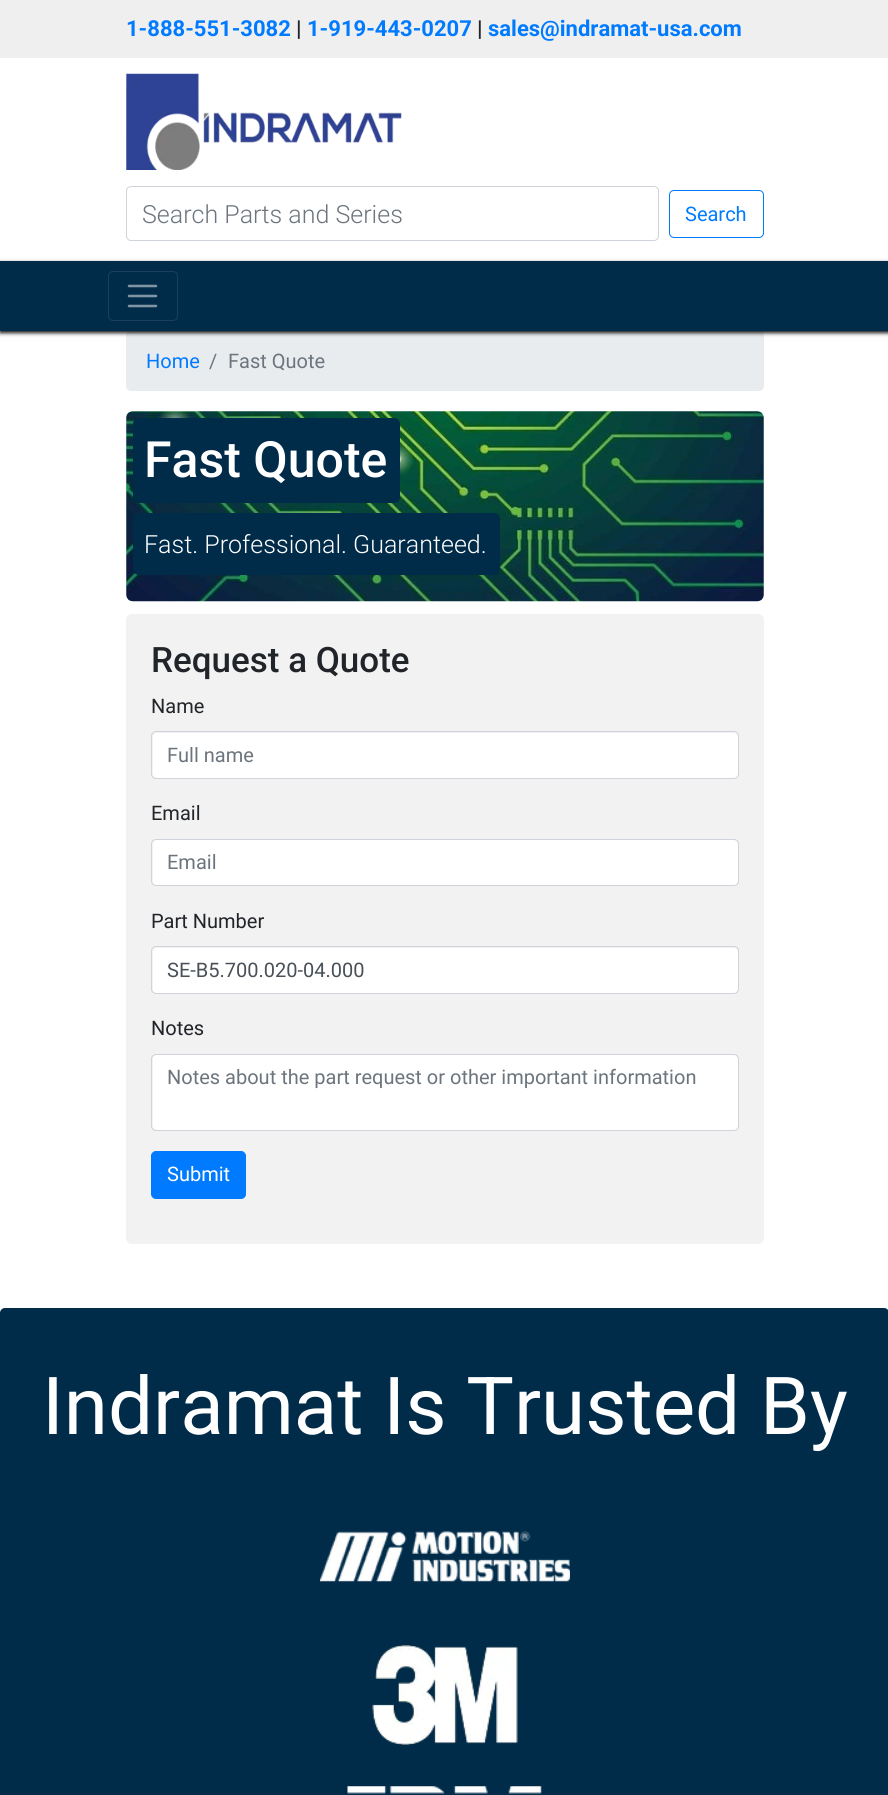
#include <cairo/cairo.h>
#include <math.h>
#include <stddef.h>

static cairo_t *cr;

static void rgb(unsigned color)
{
	cairo_set_source_rgb(cr, (color >> 16) / 255.0, (color >> 8 & 255) / 255.0, (color & 255) / 255.0);
}

static void rrect(double x, double y, double w, double h, double r)
{
	cairo_new_sub_path(cr);
	cairo_arc(cr, x + w - r, y + h - r, r, 0, M_PI / 2);
	cairo_arc(cr, x + r, y + h - r, r, M_PI / 2, M_PI);
	cairo_arc(cr, x + r, y + r, r, M_PI, 1.5 * M_PI);
	cairo_arc(cr, x + w - r, y + r, r, 1.5 * M_PI, 2 * M_PI);
	cairo_close_path(cr);
}

static void soft_shadow(double x, double y, double w, double h, double r, double blur, double alpha)
{
	cairo_push_group_with_content(cr, CAIRO_CONTENT_ALPHA);
	cairo_set_operator(cr, CAIRO_OPERATOR_SOURCE);
	for (int i = 15; i >= -15 && fmin(w, h) + blur * i / 3 > 0; i -= 2) {
		double e = blur * i / 6;
		cairo_set_source_rgba(cr, 0, 0, 0, alpha * erfc((i - 1) / 8.5) / 2);
		rrect(x - e, y - e, w + 2 * e, h + 2 * e, fmax(0, fmin(r + e + blur * .6, fmin(w, h) / 2 + e)));
		cairo_fill(cr);
	}
	cairo_pattern_t *soft = cairo_pop_group(cr);
	cairo_mask(cr, soft);
	cairo_pattern_destroy(soft);
}

static void image(const char *path, double x, double y, double w, double h)
{
	cairo_surface_t *image = cairo_image_surface_create_from_png(path);
	cairo_save(cr);
	cairo_set_source_surface(cr, image, x, y);
	cairo_rectangle(cr, x, y, w, h);
	cairo_fill(cr);
	cairo_restore(cr);
	cairo_surface_destroy(image);
}

int main(void) {
	cairo_surface_t *surface = cairo_image_surface_create(CAIRO_FORMAT_RGB24, 888, 1795);
	cr = cairo_create(surface);
	cairo_font_options_t *options = cairo_font_options_create();
	cairo_font_options_set_hint_metrics(options, CAIRO_HINT_METRICS_OFF);
	cairo_font_options_set_hint_style(options, CAIRO_HINT_STYLE_NONE);
	cairo_set_font_options(cr, options);
	cairo_set_miter_limit(cr, 4);
	rgb(0xffffff);
	cairo_paint(cr);
	rgb(0xefefef);
	cairo_rectangle(cr, 0, 0, 888, 58);
	cairo_fill(cr);
	image("img/1.png", 126, 73, 276, 97);
	rrect(126.5, 186.5, 532, 54, 4.5);
	rgb(0xced4da);
	cairo_set_line_width(cr, 1);
	cairo_stroke(cr);
	rrect(669.5, 190.5, 94, 47, 4.5);
	rgb(0x007bff);
	cairo_stroke(cr);
	rgb(0xe9ecef);
	rrect(126, 331, 638, 60, 5);
	cairo_fill(cr);
	rgb(0x111111);
	soft_shadow(0, 263, 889, 70, 0, 2, 1);
	rgb(0x002b49);
	cairo_rectangle(cr, 0, 261, 888, 70);
	cairo_fill(cr);
	rrect(108.5, 271.5, 69, 49, 4.5);
	rgb(0x1a405b);
	cairo_stroke(cr);
	cairo_new_path(cr);
	cairo_move_to(cr, 129, 286);
	cairo_line_to(cr, 156, 286);
	cairo_move_to(cr, 129, 296);
	cairo_line_to(cr, 156, 296);
	cairo_move_to(cr, 129, 306);
	cairo_line_to(cr, 156, 306);
	rgb(0x8095a4);
	cairo_set_line_width(cr, 2.5);
	cairo_set_line_cap(cr, CAIRO_LINE_CAP_ROUND);
	cairo_stroke(cr);
	image("img/2.png", 126, 411, 638, 191);
	rgb(0x002b49);
	rrect(133, 418, 267, 85, 6);
	cairo_fill(cr);
	rrect(133, 513, 367, 62, 6);
	cairo_fill(cr);
	rgb(0xf2f2f2);
	rrect(126, 614, 638, 630, 6);
	cairo_fill(cr);
	rgb(0xffffff);
	rrect(153, 733, 585, 45, 4);
	cairo_fill(cr);
	rrect(151.5, 731.5, 587, 47, 4.5);
	rgb(0xced4da);
	cairo_set_line_width(cr, 1);
	cairo_set_line_cap(cr, CAIRO_LINE_CAP_BUTT);
	cairo_stroke(cr);
	rgb(0xffffff);
	rrect(153, 840, 585, 45, 4);
	cairo_fill(cr);
	rrect(151.5, 839.5, 587, 46, 4.5);
	rgb(0xced4da);
	cairo_stroke(cr);
	rgb(0xffffff);
	rrect(153, 948, 585, 45, 4);
	cairo_fill(cr);
	rrect(151.5, 946.5, 587, 47, 4.5);
	rgb(0xced4da);
	cairo_stroke(cr);
	rgb(0xffffff);
	rrect(153, 1055, 585, 75, 4);
	cairo_fill(cr);
	rrect(151.5, 1054.5, 587, 76, 4.5);
	rgb(0xced4da);
	cairo_stroke(cr);
	rgb(0x007bff);
	rrect(151.5, 1151.5, 94, 47, 4.5);
	cairo_fill_preserve(cr);
	cairo_stroke(cr);
	rgb(0x002b49);
	rrect(0, 1308, 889, 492, 5);
	cairo_fill(cr);
	image("img/3.png", 320, 1531, 250, 51);
	image("img/4.png", 372, 1645, 146, 100);
	image("img/5.png", 347, 1786, 195, 8);
	cairo_select_font_face(cr, "Roboto", CAIRO_FONT_SLANT_NORMAL, CAIRO_FONT_WEIGHT_BOLD);
	cairo_set_font_size(cr, 22);
	rgb(0x007bff);
	cairo_move_to(cr, 126, 36);
	cairo_show_text(cr, "1-888-551-3082");
	rgb(0x212529);
	cairo_move_to(cr, 296, 36);
	cairo_show_text(cr, "|");
	rgb(0x007bff);
	cairo_move_to(cr, 307, 36);
	cairo_show_text(cr, "1-919-443-0207");
	rgb(0x212529);
	cairo_move_to(cr, 477, 36);
	cairo_show_text(cr, "|");
	rgb(0x007bff);
	cairo_move_to(cr, 488, 36);
	cairo_show_text(cr, "sales@indramat-usa.com");
	cairo_select_font_face(cr, "Roboto Light", CAIRO_FONT_SLANT_NORMAL, CAIRO_FONT_WEIGHT_NORMAL);
	cairo_set_font_size(cr, 25);
	rgb(0x6c757d);
	cairo_move_to(cr, 142, 223);
	cairo_show_text(cr, "Search Parts and Series");
	cairo_select_font_face(cr, "Roboto", CAIRO_FONT_SLANT_NORMAL, CAIRO_FONT_WEIGHT_NORMAL);
	cairo_set_font_size(cr, 20);
	rgb(0x007bff);
	cairo_move_to(cr, 685, 221);
	cairo_show_text(cr, "Search");
	cairo_move_to(cr, 146, 368);
	cairo_show_text(cr, "Home");
	rgb(0x6c757d);
	cairo_move_to(cr, 209, 368);
	cairo_show_text(cr, "/");
	cairo_move_to(cr, 228, 368);
	cairo_show_text(cr, "Fast Quote");
	cairo_select_font_face(cr, "Roboto Medium", CAIRO_FONT_SLANT_NORMAL, CAIRO_FONT_WEIGHT_NORMAL);
	cairo_set_font_size(cr, 50);
	rgb(0xffffff);
	cairo_move_to(cr, 144, 477);
	cairo_show_text(cr, "Fast Quote");
	cairo_select_font_face(cr, "Roboto Light", CAIRO_FONT_SLANT_NORMAL, CAIRO_FONT_WEIGHT_NORMAL);
	cairo_set_font_size(cr, 25);
	cairo_move_to(cr, 144, 553);
	cairo_show_text(cr, "Fast. Professional. Guaranteed.");
	cairo_select_font_face(cr, "Roboto Medium", CAIRO_FONT_SLANT_NORMAL, CAIRO_FONT_WEIGHT_NORMAL);
	cairo_set_font_size(cr, 35);
	rgb(0x212529);
	cairo_move_to(cr, 151, 672);
	cairo_show_text(cr, "Request a Quote");
	cairo_select_font_face(cr, "Roboto", CAIRO_FONT_SLANT_NORMAL, CAIRO_FONT_WEIGHT_NORMAL);
	cairo_set_font_size(cr, 20);
	cairo_move_to(cr, 151, 713);
	cairo_show_text(cr, "Name");
	rgb(0x6c757d);
	cairo_move_to(cr, 167, 762);
	cairo_show_text(cr, "Full name");
	rgb(0x212529);
	cairo_move_to(cr, 151, 820);
	cairo_show_text(cr, "Email");
	rgb(0x6c757d);
	cairo_move_to(cr, 167, 869);
	cairo_show_text(cr, "Email");
	rgb(0x212529);
	cairo_move_to(cr, 151, 928);
	cairo_show_text(cr, "Part Number");
	rgb(0x495057);
	cairo_move_to(cr, 167, 977);
	cairo_show_text(cr, "SE-B5.700.020-04.000");
	rgb(0x212529);
	cairo_move_to(cr, 151, 1035);
	cairo_show_text(cr, "Notes");
	rgb(0x6c757d);
	cairo_move_to(cr, 167, 1084);
	cairo_show_text(cr, "Notes about the part request or other important information");
	rgb(0xffffff);
	cairo_move_to(cr, 167, 1181);
	cairo_show_text(cr, "Submit");
	cairo_set_font_size(cr, 80);
	cairo_move_to(cr, 42, 1434);
	cairo_show_text(cr, "Indramat Is Trusted By");
	cairo_surface_write_to_png(surface, "page.png");
	cairo_font_options_destroy(options);
	cairo_destroy(cr);
	cairo_surface_destroy(surface);
	return 0;
}
